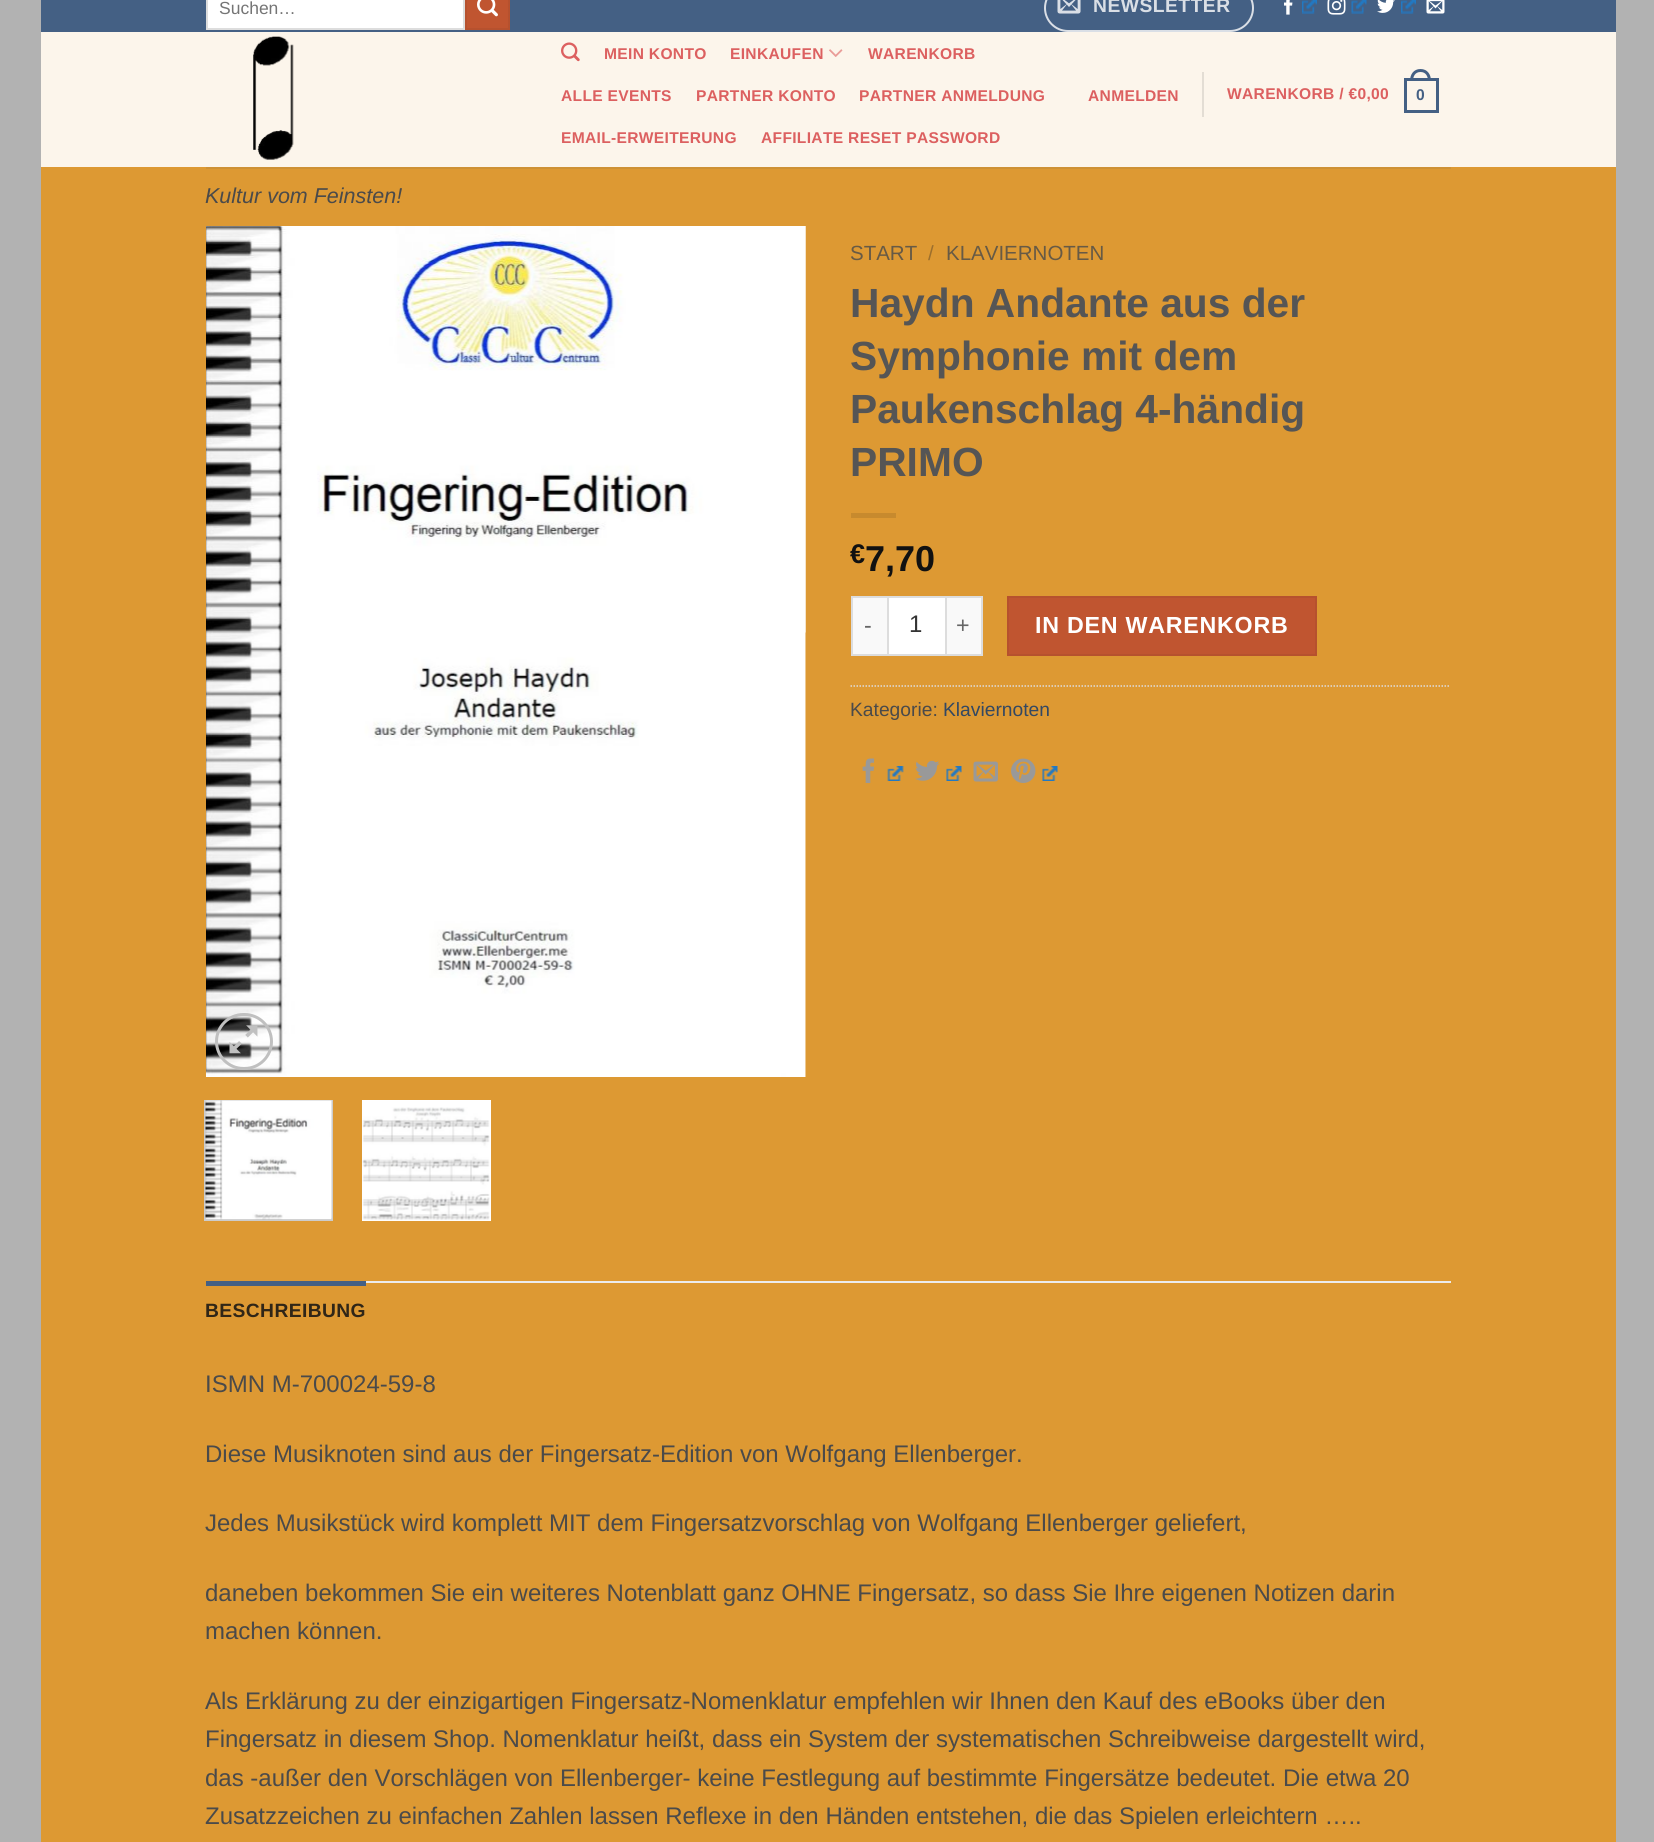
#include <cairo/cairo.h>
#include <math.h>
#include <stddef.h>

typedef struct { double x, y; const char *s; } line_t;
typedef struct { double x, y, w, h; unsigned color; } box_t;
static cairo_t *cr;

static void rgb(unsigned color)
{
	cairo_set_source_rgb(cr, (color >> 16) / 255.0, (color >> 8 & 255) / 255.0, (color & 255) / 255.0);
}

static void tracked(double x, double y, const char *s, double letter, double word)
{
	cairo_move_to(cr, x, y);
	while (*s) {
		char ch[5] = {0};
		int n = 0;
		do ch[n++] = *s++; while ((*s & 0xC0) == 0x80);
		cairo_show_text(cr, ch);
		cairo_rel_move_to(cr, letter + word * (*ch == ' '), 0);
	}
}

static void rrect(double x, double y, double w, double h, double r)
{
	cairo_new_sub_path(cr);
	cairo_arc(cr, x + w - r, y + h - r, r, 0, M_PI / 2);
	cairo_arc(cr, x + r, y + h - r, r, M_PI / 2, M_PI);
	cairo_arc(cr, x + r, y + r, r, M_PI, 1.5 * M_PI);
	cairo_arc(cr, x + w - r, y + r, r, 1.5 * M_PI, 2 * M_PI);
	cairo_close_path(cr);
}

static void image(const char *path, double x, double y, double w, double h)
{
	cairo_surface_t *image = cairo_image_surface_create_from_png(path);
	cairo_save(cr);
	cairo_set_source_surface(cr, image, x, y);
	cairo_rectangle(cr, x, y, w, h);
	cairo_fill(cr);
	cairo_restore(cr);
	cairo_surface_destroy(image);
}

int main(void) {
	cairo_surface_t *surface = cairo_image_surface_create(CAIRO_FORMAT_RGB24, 1654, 1842);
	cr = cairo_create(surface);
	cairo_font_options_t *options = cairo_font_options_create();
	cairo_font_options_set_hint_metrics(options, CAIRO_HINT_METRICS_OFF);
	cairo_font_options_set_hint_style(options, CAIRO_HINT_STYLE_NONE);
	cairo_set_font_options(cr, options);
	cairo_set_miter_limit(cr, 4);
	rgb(0xb2b2b2);
	cairo_paint(cr);
	rgb(0xdd9933);
	cairo_rectangle(cr, 41, 167, 1575, 1675);
	cairo_fill(cr);
	rgb(0x446084);
	cairo_rectangle(cr, 41, 0, 1575, 32);
	cairo_fill(cr);
	rgb(0xffffff);
	cairo_rectangle(cr, 207, -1, 257, 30);
	cairo_fill_preserve(cr);
	rgb(0xdddddd);
	cairo_stroke(cr);
	rgb(0xc05530);
	cairo_rectangle(cr, 466, -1, 43, 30);
	cairo_fill_preserve(cr);
	rgb(0xb6512e);
	cairo_stroke(cr);
	image("img/1.png", 477, 0, 21, 17);
	rrect(1045, -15, 208, 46, 23);
	rgb(0xdadfe6);
	cairo_stroke(cr);
	image("img/2.png", 1057, 0, 24, 14);
	image("img/3.png", 1284, 0, 9, 15);
	image("img/4.png", 1302, 0, 15, 14);
	image("img/5.png", 1327, 0, 19, 15);
	image("img/6.png", 1351, 0, 16, 14);
	image("img/7.png", 1377, 0, 18, 13);
	image("img/4.png", 1401, 0, 15, 14);
	image("img/8.png", 1426, 0, 19, 14);
	rgb(0xfcf5eb);
	cairo_rectangle(cr, 41, 32, 1575, 135);
	cairo_fill(cr);
	image("img/9.png", 561, 42, 19, 20);
	image("img/10.png", 829, 49, 14, 8);
	rgb(0xe3ddd4);
	cairo_rectangle(cr, 1202, 72, 2, 45);
	cairo_fill(cr);
	cairo_rectangle(cr, 1405.5, 79.5, 32, 32);
	rgb(0x446084);
	cairo_set_line_width(cr, 3);
	cairo_stroke(cr);
	cairo_set_fill_rule(cr, CAIRO_FILL_RULE_EVEN_ODD);
	cairo_new_path(cr);
	cairo_move_to(cr, 1420.5, 69);
	cairo_curve_to(cr, 1427.5, 69, 1431, 74.5, 1431, 81);
	cairo_line_to(cr, 1410, 81);
	cairo_curve_to(cr, 1410, 74.5, 1413.5, 69, 1420.5, 69);
	cairo_close_path(cr);
	cairo_move_to(cr, 1420.5, 72);
	cairo_curve_to(cr, 1426, 72, 1428, 76.5, 1428, 81);
	cairo_line_to(cr, 1413, 81);
	cairo_curve_to(cr, 1413, 76.5, 1415, 72, 1420.5, 72);
	cairo_close_path(cr);
	cairo_fill(cr);
	image("img/11.png", 253, 36, 41, 124);
	rgb(0xce9135);
	cairo_rectangle(cr, 206, 167, 1245, 2);
	cairo_fill(cr);
	image("img/12.png", 206, 226, 600, 851);
	image("img/13.png", 805, 226, 1, 407);
	rrect(216.5, 1014.5, 55, 54, 27);
	rgb(0xc0c0c0);
	cairo_stroke(cr);
	image("img/14.png", 229, 1025, 29, 29);
	rgb(0xffffff);
	cairo_rectangle(cr, 206, 1218, 125, 1);
	cairo_fill(cr);
	cairo_rectangle(cr, 205, 1101, 127, 119);
	rgb(0xcccccc);
	cairo_set_line_width(cr, 2);
	cairo_stroke(cr);
	image("img/15.png", 205, 1100, 127, 120);
	rgb(0xffffff);
	cairo_rectangle(cr, 362, 1100, 129, 121);
	cairo_fill(cr);
	image("img/16.png", 362, 1107, 128, 113);
	{
		static const box_t items[] = {
			{851, 513, 45, 5, 0xc78a2e},
			{853, 598, 34, 56, 0xf9f9f9},
			{851, 596, 36, 2, 0xdddddd},
			{851, 654, 36, 2, 0xdddddd},
			{851, 596, 2, 60, 0xdddddd},
		};
		for (size_t i = 0; i < sizeof items / sizeof *items; i++) {
			rgb(items[i].color);
			cairo_rectangle(cr, items[i].x, items[i].y, items[i].w, items[i].h);
			cairo_fill(cr);
		}
	}
	rgb(0xffffff);
	cairo_rectangle(cr, 888, 597, 58, 58);
	cairo_fill_preserve(cr);
	rgb(0xdddddd);
	cairo_stroke(cr);
	{
		static const box_t items[] = {
			{947, 598, 34, 56, 0xf9f9f9},
			{947, 596, 36, 2, 0xdddddd},
			{981, 596, 2, 60, 0xdddddd},
			{947, 654, 36, 2, 0xdddddd},
		};
		for (size_t i = 0; i < sizeof items / sizeof *items; i++) {
			rgb(items[i].color);
			cairo_rectangle(cr, items[i].x, items[i].y, items[i].w, items[i].h);
			cairo_fill(cr);
		}
	}
	rgb(0xc05530);
	cairo_rectangle(cr, 1008, 597, 308, 58);
	cairo_fill_preserve(cr);
	rgb(0xb6512e);
	cairo_stroke(cr);
	cairo_new_path(cr);
	cairo_move_to(cr, 850.5, 686);
	cairo_line_to(cr, 1450.5, 686);
	rgb(0xdddddd);
	cairo_set_line_width(cr, 1.5);
	cairo_set_dash(cr, (double[]){1.5, 1.5}, 2, 0);
	cairo_stroke(cr);
	image("img/17.png", 862, 758, 13, 25);
	image("img/18.png", 887, 766, 17, 15);
	image("img/19.png", 915, 760, 25, 21);
	image("img/20.png", 946, 766, 16, 15);
	image("img/21.png", 973, 761, 25, 21);
	image("img/22.png", 1011, 758, 25, 25);
	image("img/23.png", 1042, 766, 16, 15);
	rgb(0xececec);
	cairo_rectangle(cr, 366, 1281, 1085, 2);
	cairo_fill(cr);
	rgb(0x446084);
	cairo_rectangle(cr, 206, 1281, 160, 5);
	cairo_fill(cr);
	cairo_select_font_face(cr, "Liberation Sans", CAIRO_FONT_SLANT_NORMAL, CAIRO_FONT_WEIGHT_NORMAL);
	cairo_set_font_size(cr, 17.5);
	rgb(0x757575);
	cairo_move_to(cr, 219, 14);
	cairo_show_text(cr, "Suchen…");
	cairo_select_font_face(cr, "Liberation Sans", CAIRO_FONT_SLANT_NORMAL, CAIRO_FONT_WEIGHT_BOLD);
	cairo_set_font_size(cr, 19.25);
	rgb(0xdadfe6);
	tracked(1093, 12, "NEWSLETTER", 0.5, 0);
	cairo_set_font_size(cr, 15.6);
	rgb(0xdc6060);
	{
		static const line_t items[] = {
			{604, 59, "MEIN KONTO"},
			{730, 59, "EINKAUFEN"},
			{868, 59, "WARENKORB"},
			{561, 101, "ALLE EVENTS"},
			{696, 101, "PARTNER KONTO"},
			{859, 101, "PARTNER ANMELDUNG"},
			{561, 143, "EMAIL-ERWEITERUNG"},
			{761, 143, "AFFILIATE RESET PASSWORD"},
			{1088, 101, "ANMELDEN"},
			{1227, 99, "WARENKORB / €0,00"},
		};
		for (size_t i = 0; i < sizeof items / sizeof *items; i++) {
			tracked(items[i].x, items[i].y, items[i].s, 0.3, 0);
		}
	}
	rgb(0x446084);
	tracked(1416, 100, "0", 0.3, 0);
	cairo_select_font_face(cr, "Liberation Sans", CAIRO_FONT_SLANT_ITALIC, CAIRO_FONT_WEIGHT_NORMAL);
	cairo_set_font_size(cr, 21.5);
	rgb(0x4a4a4a);
	cairo_move_to(cr, 205, 203);
	cairo_show_text(cr, "Kultur vom Feinsten!");
	cairo_select_font_face(cr, "Liberation Sans", CAIRO_FONT_SLANT_NORMAL, CAIRO_FONT_WEIGHT_NORMAL);
	cairo_set_font_size(cr, 20.5);
	rgb(0x675a45);
	cairo_move_to(cr, 850, 260);
	cairo_show_text(cr, "START");
	rgb(0x9c6f2d);
	cairo_move_to(cr, 928, 260);
	cairo_show_text(cr, "/");
	rgb(0x675a45);
	cairo_move_to(cr, 946, 260);
	cairo_show_text(cr, "KLAVIERNOTEN");
	cairo_select_font_face(cr, "Liberation Sans", CAIRO_FONT_SLANT_NORMAL, CAIRO_FONT_WEIGHT_BOLD);
	cairo_set_font_size(cr, 40.75);
	rgb(0x555555);
	{
		static const line_t items[] = {
			{850, 317, "Haydn Andante aus der"},
			{850, 370, "Symphonie mit dem"},
			{850, 423, "Paukenschlag 4-händig"},
			{850, 476, "PRIMO"},
		};
		for (size_t i = 0; i < sizeof items / sizeof *items; i++) {
			cairo_move_to(cr, items[i].x, items[i].y);
			cairo_show_text(cr, items[i].s);
		}
	}
	cairo_set_font_size(cr, 27);
	rgb(0x111111);
	cairo_move_to(cr, 850, 563);
	cairo_show_text(cr, "€");
	cairo_set_font_size(cr, 36);
	cairo_move_to(cr, 865, 571);
	cairo_show_text(cr, "7,70");
	cairo_select_font_face(cr, "Liberation Sans", CAIRO_FONT_SLANT_NORMAL, CAIRO_FONT_WEIGHT_NORMAL);
	cairo_set_font_size(cr, 23.25);
	rgb(0x666666);
	tracked(864, 633, "-", 0.75, 0);
	cairo_set_font_size(cr, 24);
	rgb(0x333333);
	cairo_move_to(cr, 909, 632);
	cairo_show_text(cr, "1");
	cairo_set_font_size(cr, 23.25);
	rgb(0x666666);
	tracked(956, 633, "+", 0.75, 0);
	cairo_select_font_face(cr, "Liberation Sans", CAIRO_FONT_SLANT_NORMAL, CAIRO_FONT_WEIGHT_BOLD);
	rgb(0xffffff);
	tracked(1035, 633, "IN DEN WARENKORB", 0.75, 0);
	cairo_select_font_face(cr, "Liberation Sans", CAIRO_FONT_SLANT_NORMAL, CAIRO_FONT_WEIGHT_NORMAL);
	cairo_set_font_size(cr, 19.25);
	rgb(0x4a4a4a);
	cairo_move_to(cr, 850, 716);
	cairo_show_text(cr, "Kategorie:");
	rgb(0x334862);
	cairo_move_to(cr, 943, 716);
	cairo_show_text(cr, "Klaviernoten");
	cairo_select_font_face(cr, "Liberation Sans", CAIRO_FONT_SLANT_NORMAL, CAIRO_FONT_WEIGHT_BOLD);
	rgb(0x302617);
	tracked(205, 1317, "BESCHREIBUNG", 0.4, 0);
	cairo_select_font_face(cr, "Liberation Sans", CAIRO_FONT_SLANT_NORMAL, CAIRO_FONT_WEIGHT_NORMAL);
	cairo_set_font_size(cr, 24);
	rgb(0x4a4a4a);
	{
		static const line_t items[] = {
			{205, 1392, "ISMN M-700024-59-8"},
			{205, 1462, "Diese Musiknoten sind aus der Fingersatz-Edition von Wolfgang Ellenberger."},
			{205, 1531, "Jedes Musikstück wird komplett MIT dem Fingersatzvorschlag von Wolfgang Ellenberger geliefert,"},
			{205, 1601, "daneben bekommen Sie ein weiteres Notenblatt ganz OHNE Fingersatz, so dass Sie Ihre eigenen Notizen darin"},
			{205, 1639, "machen können."},
			{205, 1709, "Als Erklärung zu der einzigartigen Fingersatz-Nomenklatur empfehlen wir Ihnen den Kauf des eBooks über den"},
			{205, 1747, "Fingersatz in diesem Shop. Nomenklatur heißt, dass ein System der systematischen Schreibweise dargestellt wird,"},
			{205, 1786, "das -außer den Vorschlägen von Ellenberger- keine Festlegung auf bestimmte Fingersätze bedeutet. Die etwa 20"},
			{205, 1824, "Zusatzzeichen zu einfachen Zahlen lassen Reflexe in den Händen entstehen, die das Spielen erleichtern ….."},
		};
		for (size_t i = 0; i < sizeof items / sizeof *items; i++) {
			cairo_move_to(cr, items[i].x, items[i].y);
			cairo_show_text(cr, items[i].s);
		}
	}
	cairo_surface_write_to_png(surface, "page.png");
	cairo_font_options_destroy(options);
	cairo_destroy(cr);
	cairo_surface_destroy(surface);
	return 0;
}
